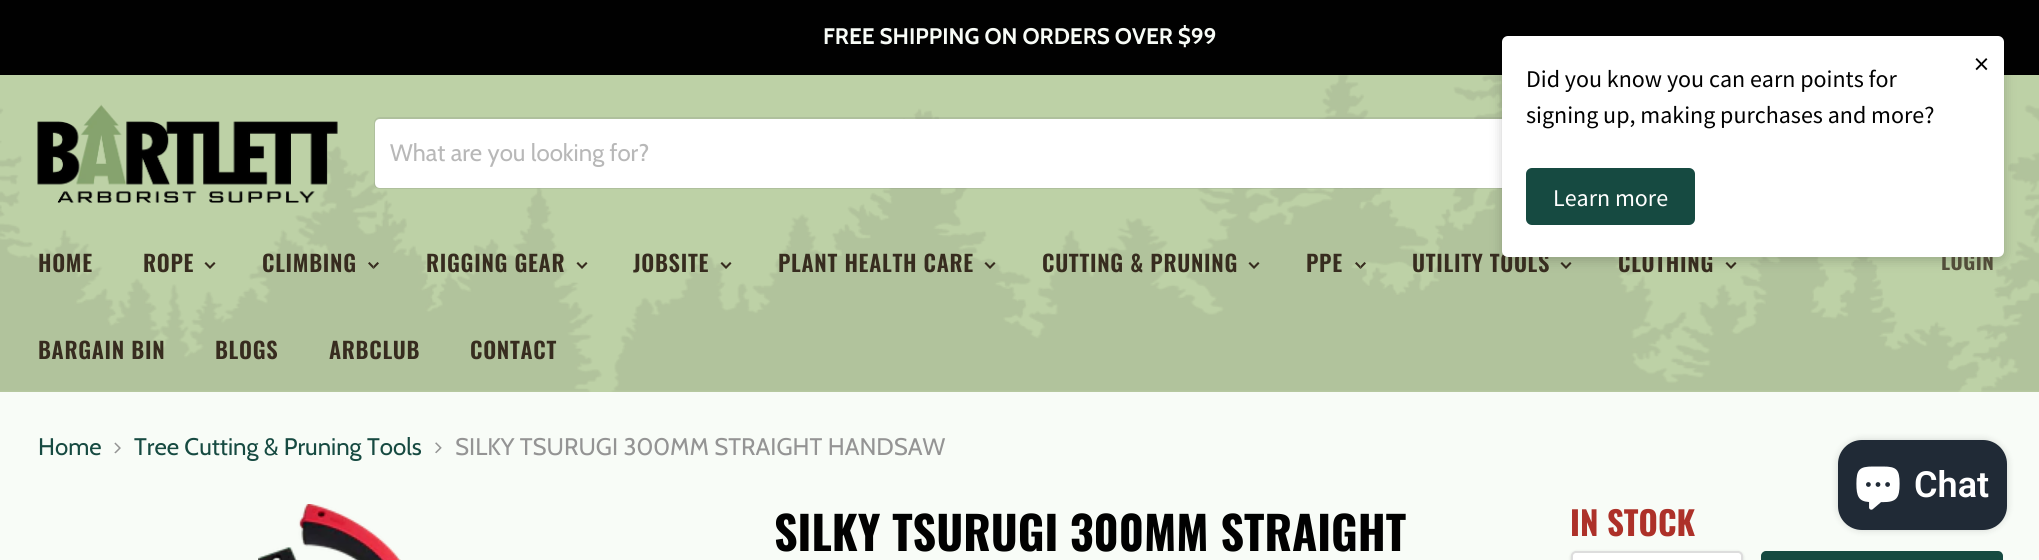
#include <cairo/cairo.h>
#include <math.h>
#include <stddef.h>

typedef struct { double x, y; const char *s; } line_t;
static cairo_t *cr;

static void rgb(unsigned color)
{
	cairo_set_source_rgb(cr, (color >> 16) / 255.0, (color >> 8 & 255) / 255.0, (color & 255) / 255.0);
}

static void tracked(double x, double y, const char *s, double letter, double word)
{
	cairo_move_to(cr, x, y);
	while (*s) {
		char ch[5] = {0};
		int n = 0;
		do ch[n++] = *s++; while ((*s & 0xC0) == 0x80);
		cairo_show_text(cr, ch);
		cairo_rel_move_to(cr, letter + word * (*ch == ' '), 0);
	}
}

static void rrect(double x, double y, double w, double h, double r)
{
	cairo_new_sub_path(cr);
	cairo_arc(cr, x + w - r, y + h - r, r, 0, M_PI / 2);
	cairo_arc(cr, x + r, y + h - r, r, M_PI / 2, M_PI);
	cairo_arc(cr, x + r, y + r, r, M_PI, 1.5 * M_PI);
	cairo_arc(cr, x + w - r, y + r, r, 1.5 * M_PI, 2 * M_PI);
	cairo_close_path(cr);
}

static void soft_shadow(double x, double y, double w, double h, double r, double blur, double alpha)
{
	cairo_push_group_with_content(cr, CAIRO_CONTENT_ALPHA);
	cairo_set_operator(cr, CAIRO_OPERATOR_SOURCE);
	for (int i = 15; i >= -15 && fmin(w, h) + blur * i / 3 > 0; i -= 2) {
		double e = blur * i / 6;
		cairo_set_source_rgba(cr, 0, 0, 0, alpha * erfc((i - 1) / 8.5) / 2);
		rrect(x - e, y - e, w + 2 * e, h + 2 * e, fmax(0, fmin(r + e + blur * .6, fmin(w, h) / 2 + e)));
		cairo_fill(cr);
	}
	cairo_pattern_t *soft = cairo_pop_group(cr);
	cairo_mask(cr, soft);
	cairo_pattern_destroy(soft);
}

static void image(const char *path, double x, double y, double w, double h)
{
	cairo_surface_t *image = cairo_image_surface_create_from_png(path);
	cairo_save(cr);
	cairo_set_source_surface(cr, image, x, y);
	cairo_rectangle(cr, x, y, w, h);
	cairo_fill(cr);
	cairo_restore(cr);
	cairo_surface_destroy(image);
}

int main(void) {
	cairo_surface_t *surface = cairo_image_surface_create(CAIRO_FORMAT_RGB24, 2039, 560);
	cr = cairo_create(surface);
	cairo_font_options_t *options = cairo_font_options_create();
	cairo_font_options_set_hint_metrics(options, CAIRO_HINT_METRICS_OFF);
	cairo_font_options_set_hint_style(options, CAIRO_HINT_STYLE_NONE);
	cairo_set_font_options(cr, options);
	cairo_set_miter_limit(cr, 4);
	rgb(0xf8fcf7);
	cairo_paint(cr);
	rgb(0x010101);
	cairo_rectangle(cr, 0, 0, 2039, 75);
	cairo_fill(cr);
	rgb(0xbdd1a6);
	cairo_rectangle(cr, 0, 75, 2039, 317);
	cairo_fill(cr);
	image("img/1.png", 0, 75, 2039, 317);
	rrect(375, 118, 1441, 70, 5);
	cairo_set_source_rgba(cr, 0.486, 0.494, 0.482, 0.2);
	cairo_stroke(cr);
	rgb(0xffffff);
	cairo_new_path(cr);
	cairo_move_to(cr, 380, 119);
	cairo_line_to(cr, 1736, 119);
	cairo_line_to(cr, 1736, 188);
	cairo_line_to(cr, 380, 188);
	cairo_curve_to(cr, 377, 188, 375, 186, 375, 183);
	cairo_line_to(cr, 375, 124);
	cairo_curve_to(cr, 375, 121, 377, 119, 380, 119);
	cairo_close_path(cr);
	cairo_fill(cr);
	image("img/7.png", 1560, 262, 12, 7);
	image("img/3.png", 1725, 262, 12, 7);
	rgb(0x000000);
	soft_shadow(1502, 39, 502, 221, 6, 6, 0.2);
	image("img/2.png", 37, 104, 301, 99);
	image("img/3.png", 204, 262, 12, 7);
	image("img/4.png", 368, 262, 11, 7);
	image("img/3.png", 576, 262, 12, 7);
	image("img/5.png", 720, 262, 12, 7);
	image("img/6.png", 984, 262, 12, 7);
	image("img/7.png", 1248, 262, 12, 7);
	image("img/8.png", 1355, 262, 11, 7);
	image("img/9.png", 114, 442, 7, 12);
	image("img/10.png", 435, 442, 7, 12);
	image("img/11.png", 258, 504, 143, 56);
	soft_shadow(1571, 552, 172, 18, 5, 1.5, 0.15);
	rgb(0xffffff);
	rrect(1572, 552, 170, 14, 4);
	cairo_fill_preserve(cr);
	rgb(0xdddddd);
	cairo_stroke(cr);
	rgb(0x164a41);
	rrect(1762, 552, 240, 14, 4);
	cairo_fill_preserve(cr);
	cairo_stroke(cr);
	rgb(0x000000);
	soft_shadow(1838, 440, 169, 90, 24, 4, 0.15);
	rgb(0x202a36);
	rrect(1838, 440, 169, 90, 24);
	cairo_fill(cr);
	image("img/12.png", 1856, 466, 44, 44);
	cairo_select_font_face(cr, "Cabin", CAIRO_FONT_SLANT_NORMAL, CAIRO_FONT_WEIGHT_BOLD);
	cairo_set_font_size(cr, 22.5);
	rgb(0xf8fcf7);
	cairo_move_to(cr, 823, 44);
	cairo_show_text(cr, "FREE SHIPPING ON ORDERS OVER $99");
	cairo_select_font_face(cr, "Cabin", CAIRO_FONT_SLANT_NORMAL, CAIRO_FONT_WEIGHT_NORMAL);
	cairo_set_font_size(cr, 24);
	rgb(0xb8b8b8);
	cairo_move_to(cr, 390, 161);
	cairo_show_text(cr, "What are you looking for?");
	cairo_select_font_face(cr, "Oswald SemiBold", CAIRO_FONT_SLANT_NORMAL, CAIRO_FONT_WEIGHT_NORMAL);
	cairo_set_font_size(cr, 22.5);
	rgb(0x372c1f);
	{
		static const line_t items[] = {
			{38, 272, "HOME"},
			{143, 272, "ROPE"},
			{262, 272, "CLIMBING"},
			{426, 272, "RIGGING GEAR"},
			{633, 272, "JOBSITE"},
			{778, 272, "PLANT HEALTH CARE"},
			{1042, 272, "CUTTING & PRUNING"},
			{1306, 272, "PPE"},
			{1412, 272, "UTILITY TOOLS"},
			{1618, 272, "CLOTHING"},
			{38, 359, "BARGAIN BIN"},
			{215, 359, "BLOGS"},
			{329, 359, "ARBCLUB"},
			{470, 359, "CONTACT"},
		};
		for (size_t i = 0; i < sizeof items / sizeof *items; i++) {
			tracked(items[i].x, items[i].y, items[i].s, 0.7, 0);
		}
	}
	cairo_set_font_size(cr, 21);
	rgb(0x524d3a);
	tracked(1941, 270, "LOGIN", 0.5, 0);
	rgb(0xffffff);
	rrect(1502, 36, 502, 221, 6);
	cairo_fill(cr);
	cairo_select_font_face(cr, "Source Sans Pro", CAIRO_FONT_SLANT_NORMAL, CAIRO_FONT_WEIGHT_NORMAL);
	cairo_set_font_size(cr, 30);
	rgb(0x010101);
	cairo_move_to(cr, 1974, 74);
	cairo_show_text(cr, "×");
	rgb(0x164a41);
	rrect(1526, 168, 169, 57, 6);
	cairo_fill(cr);
	cairo_set_font_size(cr, 24);
	rgb(0xffffff);
	cairo_move_to(cr, 1553, 206);
	cairo_show_text(cr, "Learn more");
	rgb(0x010101);
	cairo_move_to(cr, 1526, 123);
	cairo_show_text(cr, "signing up, making purchases and more?");
	cairo_move_to(cr, 1526, 87);
	cairo_show_text(cr, "Did you know you can earn points for");
	cairo_select_font_face(cr, "Cabin", CAIRO_FONT_SLANT_NORMAL, CAIRO_FONT_WEIGHT_NORMAL);
	rgb(0x164a41);
	cairo_move_to(cr, 38, 455);
	cairo_show_text(cr, "Home");
	cairo_move_to(cr, 134, 455);
	cairo_show_text(cr, "Tree Cutting & Pruning Tools");
	rgb(0x949494);
	cairo_move_to(cr, 455, 455);
	cairo_show_text(cr, "SILKY TSURUGI 300MM STRAIGHT HANDSAW");
	cairo_select_font_face(cr, "Oswald", CAIRO_FONT_SLANT_NORMAL, CAIRO_FONT_WEIGHT_BOLD);
	cairo_set_font_size(cr, 45.9);
	rgb(0x010101);
	cairo_move_to(cr, 774, 551);
	cairo_show_text(cr, "SILKY TSURUGI 300MM STRAIGHT");
	cairo_set_font_size(cr, 33);
	rgb(0xad3129);
	cairo_move_to(cr, 1570, 536);
	cairo_show_text(cr, "IN STOCK");
	cairo_select_font_face(cr, "Roboto SemiBold", CAIRO_FONT_SLANT_NORMAL, CAIRO_FONT_WEIGHT_NORMAL);
	cairo_set_font_size(cr, 36);
	rgb(0xffffff);
	cairo_move_to(cr, 1914, 497);
	cairo_show_text(cr, "Chat");
	cairo_surface_write_to_png(surface, "page.png");
	cairo_font_options_destroy(options);
	cairo_destroy(cr);
	cairo_surface_destroy(surface);
	return 0;
}
